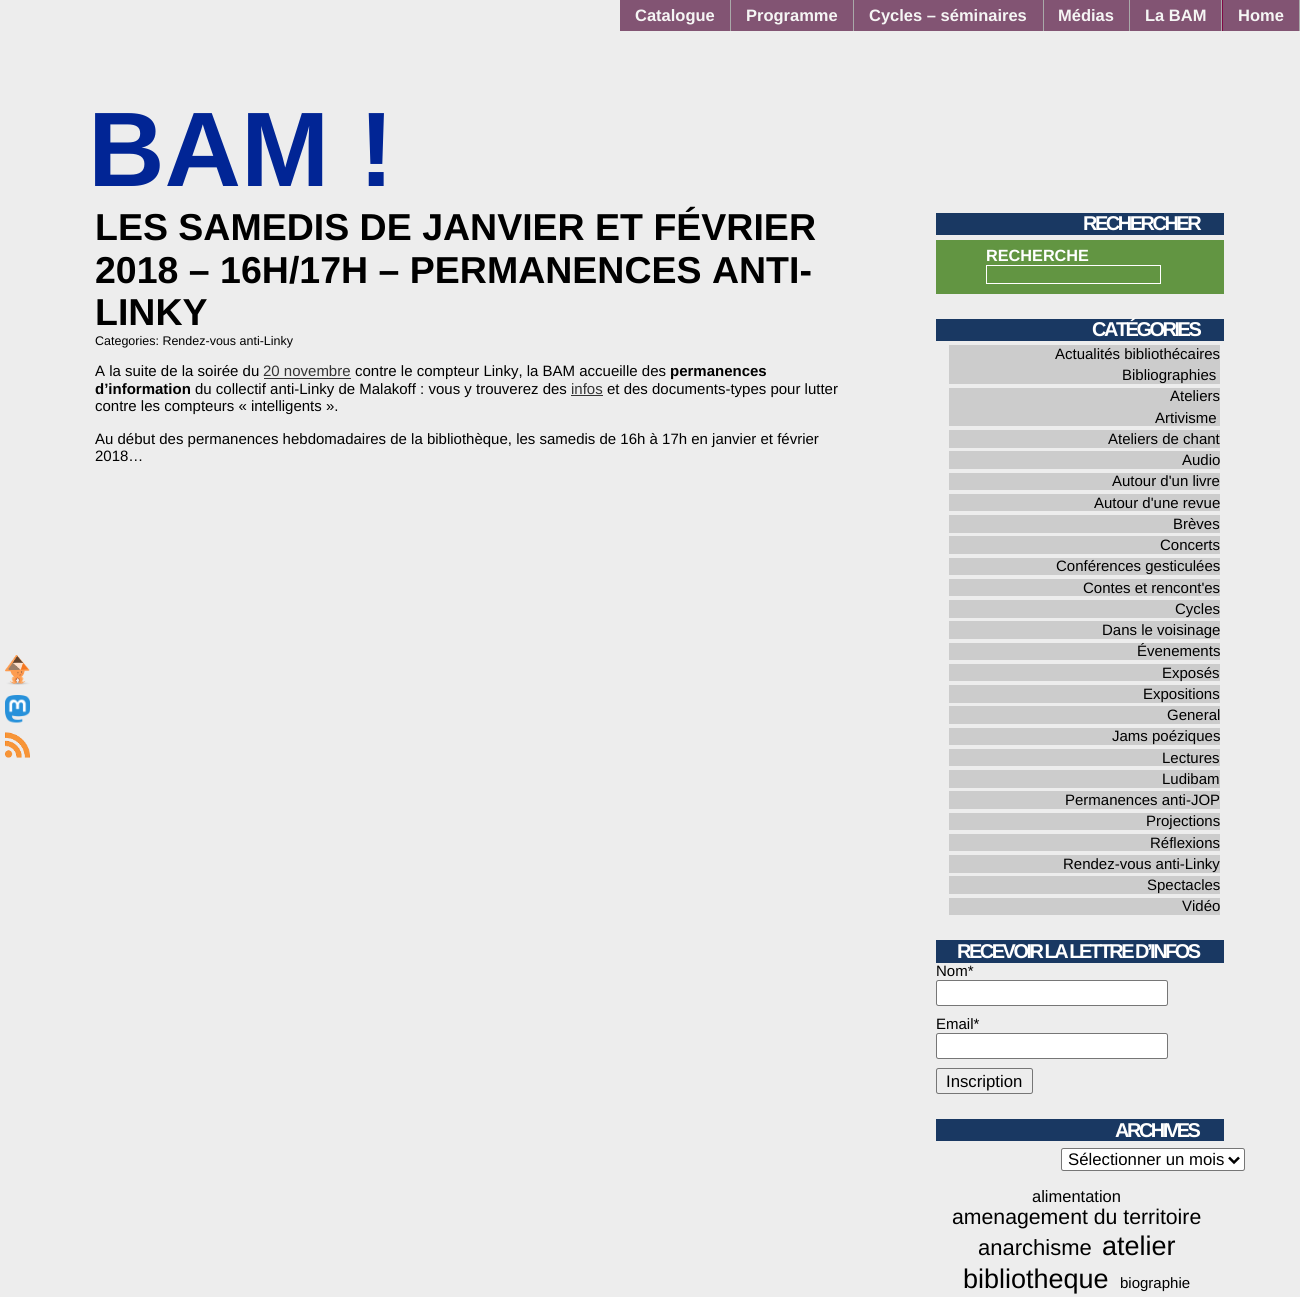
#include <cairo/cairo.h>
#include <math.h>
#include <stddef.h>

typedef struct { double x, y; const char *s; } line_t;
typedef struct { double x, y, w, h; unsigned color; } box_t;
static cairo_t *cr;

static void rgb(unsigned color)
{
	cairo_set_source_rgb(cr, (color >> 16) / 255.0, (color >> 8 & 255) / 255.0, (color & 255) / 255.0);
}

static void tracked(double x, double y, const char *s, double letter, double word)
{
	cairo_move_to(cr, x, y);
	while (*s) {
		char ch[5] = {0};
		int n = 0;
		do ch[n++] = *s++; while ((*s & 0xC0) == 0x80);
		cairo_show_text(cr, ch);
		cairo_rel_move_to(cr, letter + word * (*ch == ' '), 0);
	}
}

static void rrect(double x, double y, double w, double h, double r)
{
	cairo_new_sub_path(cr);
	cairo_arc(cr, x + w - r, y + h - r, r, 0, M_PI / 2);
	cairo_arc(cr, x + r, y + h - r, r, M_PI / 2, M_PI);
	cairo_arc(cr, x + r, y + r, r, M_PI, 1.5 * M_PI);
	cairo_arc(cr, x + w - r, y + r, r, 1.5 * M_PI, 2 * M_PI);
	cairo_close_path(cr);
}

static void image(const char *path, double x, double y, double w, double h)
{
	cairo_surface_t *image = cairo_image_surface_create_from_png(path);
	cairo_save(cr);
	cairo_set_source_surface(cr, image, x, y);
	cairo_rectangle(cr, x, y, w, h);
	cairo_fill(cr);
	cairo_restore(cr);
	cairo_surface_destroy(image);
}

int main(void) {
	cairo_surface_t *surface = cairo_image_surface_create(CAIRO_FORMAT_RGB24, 1300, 1297);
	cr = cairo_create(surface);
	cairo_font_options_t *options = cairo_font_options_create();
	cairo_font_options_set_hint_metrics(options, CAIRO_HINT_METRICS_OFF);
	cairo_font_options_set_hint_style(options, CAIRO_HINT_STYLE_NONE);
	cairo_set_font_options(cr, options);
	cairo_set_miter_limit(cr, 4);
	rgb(0xededed);
	cairo_paint(cr);
	{
		static const box_t items[] = {
			{730, 0, 1, 31, 0xa9a9a9},
			{620, 0, 110, 31, 0x825473},
			{853, 0, 1, 31, 0xa9a9a9},
			{731, 0, 122, 31, 0x825473},
			{1043, 0, 1, 31, 0xa9a9a9},
			{854, 0, 189, 31, 0x825473},
			{1129, 0, 1, 31, 0xa9a9a9},
			{1044, 0, 85, 31, 0x825473},
			{1222, 0, 1, 31, 0x810945},
			{1221, 0, 1, 31, 0xa9a9a9},
			{1130, 0, 91, 31, 0x825473},
			{1299, 0, 1, 31, 0xa9a9a9},
			{1223, 0, 76, 31, 0x825473},
		};
		for (size_t i = 0; i < sizeof items / sizeof *items; i++) {
			rgb(items[i].color);
			cairo_rectangle(cr, items[i].x, items[i].y, items[i].w, items[i].h);
			cairo_fill(cr);
		}
	}
	image("img/1.png", 5, 655, 25, 30);
	image("img/2.png", 5, 695, 25, 28);
	image("img/3.png", 5, 732, 25, 26);
	{
		static const box_t items[] = {
			{264, 378, 87, 1, 0x333333},
			{571, 395, 32, 1, 0x333333},
			{936, 213, 288, 22, 0x193862},
			{936, 240, 288, 54, 0x629542},
		};
		for (size_t i = 0; i < sizeof items / sizeof *items; i++) {
			rgb(items[i].color);
			cairo_rectangle(cr, items[i].x, items[i].y, items[i].w, items[i].h);
			cairo_fill(cr);
		}
	}
	cairo_rectangle(cr, 986.5, 265.5, 174, 18);
	rgb(0xffffff);
	cairo_set_line_width(cr, 1);
	cairo_stroke(cr);
	{
		static const box_t items[] = {
			{936, 319, 288, 22, 0x193862},
			{949, 345, 271, 39, 0xcccccc},
			{949, 388, 271, 38, 0xcccccc},
			{949, 430, 271, 18, 0xcccccc},
			{949, 451, 271, 18, 0xcccccc},
			{949, 473, 271, 17, 0xcccccc},
			{949, 494, 271, 17, 0xcccccc},
			{949, 515, 271, 18, 0xcccccc},
			{949, 536, 271, 18, 0xcccccc},
			{949, 558, 271, 17, 0xcccccc},
			{949, 579, 271, 17, 0xcccccc},
			{949, 600, 271, 18, 0xcccccc},
			{949, 621, 271, 18, 0xcccccc},
			{949, 643, 271, 17, 0xcccccc},
			{949, 664, 271, 17, 0xcccccc},
			{949, 685, 271, 18, 0xcccccc},
			{949, 706, 271, 18, 0xcccccc},
			{949, 728, 271, 17, 0xcccccc},
			{949, 749, 271, 17, 0xcccccc},
			{949, 770, 271, 18, 0xcccccc},
			{949, 791, 271, 18, 0xcccccc},
			{949, 813, 271, 17, 0xcccccc},
			{949, 834, 271, 17, 0xcccccc},
			{949, 855, 271, 18, 0xcccccc},
			{949, 876, 271, 18, 0xcccccc},
			{949, 898, 271, 17, 0xcccccc},
			{936, 940, 288, 23, 0x193862},
		};
		for (size_t i = 0; i < sizeof items / sizeof *items; i++) {
			rgb(items[i].color);
			cairo_rectangle(cr, items[i].x, items[i].y, items[i].w, items[i].h);
			cairo_fill(cr);
		}
	}
	rgb(0xffffff);
	rrect(936.5, 980.5, 231, 25, 2);
	cairo_fill_preserve(cr);
	rgb(0x767676);
	cairo_stroke(cr);
	rgb(0xffffff);
	rrect(936.5, 1033.5, 231, 25, 2);
	cairo_fill_preserve(cr);
	rgb(0x767676);
	cairo_stroke(cr);
	rrect(936.5, 1068.5, 96, 25, 2);
	cairo_stroke(cr);
	rgb(0x193862);
	cairo_rectangle(cr, 936, 1119, 288, 22);
	cairo_fill(cr);
	rgb(0xffffff);
	rrect(1061.5, 1148.5, 183, 22, 2);
	cairo_fill_preserve(cr);
	rgb(0x767676);
	cairo_stroke(cr);
	cairo_new_path(cr);
	cairo_move_to(cr, 1229, 1157.5);
	cairo_line_to(cr, 1234, 1162.5);
	cairo_line_to(cr, 1239, 1157.5);
	rgb(0x000000);
	cairo_set_line_width(cr, 2.5);
	cairo_stroke(cr);
	cairo_select_font_face(cr, "Liberation Sans", CAIRO_FONT_SLANT_NORMAL, CAIRO_FONT_WEIGHT_BOLD);
	cairo_set_font_size(cr, 16.5);
	rgb(0xf5f5f4);
	{
		static const line_t items[] = {
			{635, 21, "Catalogue"},
			{746, 21, "Programme"},
			{869, 21, "Cycles – séminaires"},
			{1058, 21, "Médias"},
			{1145, 21, "La BAM"},
			{1238, 21, "Home"},
		};
		for (size_t i = 0; i < sizeof items / sizeof *items; i++) {
			cairo_move_to(cr, items[i].x, items[i].y);
			cairo_show_text(cr, items[i].s);
		}
	}
	cairo_save(cr);
	cairo_rectangle(cr, 88, 113, 307, 75);
	cairo_clip(cr);
	cairo_set_font_size(cr, 106);
	rgb(0x012595);
	cairo_move_to(cr, 88, 186);
	cairo_show_text(cr, "BAM !");
	cairo_restore(cr);
	cairo_set_font_size(cr, 37.5);
	rgb(0x000000);
	{
		static const line_t items[] = {
			{95, 240, "LES SAMEDIS DE JANVIER ET FÉVRIER"},
			{95, 283, "2018 – 16H/17H – PERMANENCES ANTI-"},
			{95, 325, "LINKY"},
		};
		for (size_t i = 0; i < sizeof items / sizeof *items; i++) {
			cairo_move_to(cr, items[i].x, items[i].y);
			cairo_show_text(cr, items[i].s);
		}
	}
	cairo_select_font_face(cr, "Liberation Sans", CAIRO_FONT_SLANT_NORMAL, CAIRO_FONT_WEIGHT_NORMAL);
	cairo_set_font_size(cr, 12.5);
	cairo_move_to(cr, 95, 345);
	cairo_show_text(cr, "Categories: Rendez-vous anti-Linky");
	cairo_set_font_size(cr, 15);
	cairo_move_to(cr, 95, 376);
	cairo_show_text(cr, "A la suite de la soirée du");
	rgb(0x333333);
	cairo_move_to(cr, 263, 376);
	cairo_show_text(cr, "20 novembre");
	rgb(0x000000);
	cairo_move_to(cr, 355, 376);
	cairo_show_text(cr, "contre le compteur Linky, la BAM accueille des");
	cairo_select_font_face(cr, "Liberation Sans", CAIRO_FONT_SLANT_NORMAL, CAIRO_FONT_WEIGHT_BOLD);
	cairo_move_to(cr, 670, 376);
	cairo_show_text(cr, "permanences");
	cairo_move_to(cr, 95, 394);
	cairo_show_text(cr, "d’information");
	cairo_select_font_face(cr, "Liberation Sans", CAIRO_FONT_SLANT_NORMAL, CAIRO_FONT_WEIGHT_NORMAL);
	cairo_move_to(cr, 195, 394);
	cairo_show_text(cr, "du collectif anti-Linky de Malakoff : vous y trouverez des");
	rgb(0x333333);
	cairo_move_to(cr, 571, 394);
	cairo_show_text(cr, "infos");
	rgb(0x000000);
	{
		static const line_t items[] = {
			{607, 394, "et des documents-types pour lutter"},
			{95, 411, "contre les compteurs « intelligents »."},
			{95, 444, "Au début des permanences hebdomadaires de la bibliothèque, les samedis de 16h à 17h en janvier et février"},
			{95, 461, "2018…"},
		};
		for (size_t i = 0; i < sizeof items / sizeof *items; i++) {
			cairo_move_to(cr, items[i].x, items[i].y);
			cairo_show_text(cr, items[i].s);
		}
	}
	cairo_select_font_face(cr, "Liberation Sans", CAIRO_FONT_SLANT_NORMAL, CAIRO_FONT_WEIGHT_BOLD);
	cairo_set_font_size(cr, 20);
	rgb(0xffffff);
	tracked(1083, 230, "RECHERCHER", -2.5, 0);
	cairo_set_font_size(cr, 16.25);
	cairo_move_to(cr, 986, 261);
	cairo_show_text(cr, "RECHERCHE");
	cairo_set_font_size(cr, 20);
	tracked(1092, 336, "CATÉGORIES", -2.5, 0);
	cairo_select_font_face(cr, "Liberation Sans", CAIRO_FONT_SLANT_NORMAL, CAIRO_FONT_WEIGHT_NORMAL);
	cairo_set_font_size(cr, 15);
	rgb(0x000000);
	{
		static const line_t items[] = {
			{1055, 359, "Actualités bibliothécaires"},
			{1122, 380, "Bibliographies"},
			{1170, 401, "Ateliers"},
			{1155, 423, "Artivisme"},
			{1108, 444, "Ateliers de chant"},
			{1182, 465, "Audio"},
			{1112, 486, "Autour d'un livre"},
			{1094, 508, "Autour d'une revue"},
			{1173, 529, "Brèves"},
			{1160, 550, "Concerts"},
			{1056, 571, "Conférences gesticulées"},
			{1083, 593, "Contes et rencont'es"},
			{1175, 614, "Cycles"},
			{1102, 635, "Dans le voisinage"},
			{1137, 656, "Évenements"},
			{1162, 678, "Exposés"},
			{1143, 699, "Expositions"},
			{1167, 720, "General"},
			{1112, 741, "Jams poéziques"},
			{1162, 763, "Lectures"},
			{1162, 784, "Ludibam"},
			{1065, 805, "Permanences anti-JOP"},
			{1146, 826, "Projections"},
			{1150, 848, "Réflexions"},
			{1063, 869, "Rendez-vous anti-Linky"},
			{1147, 890, "Spectacles"},
			{1182, 911, "Vidéo"},
		};
		for (size_t i = 0; i < sizeof items / sizeof *items; i++) {
			cairo_move_to(cr, items[i].x, items[i].y);
			cairo_show_text(cr, items[i].s);
		}
	}
	cairo_select_font_face(cr, "Liberation Sans", CAIRO_FONT_SLANT_NORMAL, CAIRO_FONT_WEIGHT_BOLD);
	cairo_set_font_size(cr, 20);
	rgb(0xffffff);
	tracked(957, 958, "RECEVOIR LA LETTRE D’INFOS", -2.5, 0);
	cairo_select_font_face(cr, "Liberation Sans", CAIRO_FONT_SLANT_NORMAL, CAIRO_FONT_WEIGHT_NORMAL);
	cairo_set_font_size(cr, 15);
	rgb(0x000000);
	cairo_move_to(cr, 936, 976);
	cairo_show_text(cr, "Nom*");
	cairo_move_to(cr, 936, 1029);
	cairo_show_text(cr, "Email*");
	cairo_set_font_size(cr, 16.75);
	cairo_move_to(cr, 946, 1087);
	cairo_show_text(cr, "Inscription");
	cairo_select_font_face(cr, "Liberation Sans", CAIRO_FONT_SLANT_NORMAL, CAIRO_FONT_WEIGHT_BOLD);
	cairo_set_font_size(cr, 20);
	rgb(0xffffff);
	tracked(1115, 1137, "ARCHIVES", -2.5, 0);
	cairo_select_font_face(cr, "Liberation Sans", CAIRO_FONT_SLANT_NORMAL, CAIRO_FONT_WEIGHT_NORMAL);
	cairo_set_font_size(cr, 16.75);
	rgb(0x000000);
	cairo_move_to(cr, 1068, 1165);
	cairo_show_text(cr, "Sélectionner un mois");
	cairo_set_font_size(cr, 16.5);
	cairo_move_to(cr, 1032, 1202);
	cairo_show_text(cr, "alimentation");
	cairo_set_font_size(cr, 21.25);
	cairo_move_to(cr, 952, 1224);
	cairo_show_text(cr, "amenagement du territoire");
	cairo_set_font_size(cr, 22);
	cairo_move_to(cr, 978, 1255);
	cairo_show_text(cr, "anarchisme");
	cairo_set_font_size(cr, 27);
	cairo_move_to(cr, 1102, 1255);
	cairo_show_text(cr, "atelier");
	cairo_move_to(cr, 963, 1288);
	cairo_show_text(cr, "bibliotheque");
	cairo_set_font_size(cr, 15);
	cairo_move_to(cr, 1120, 1288);
	cairo_show_text(cr, "biographie");
	cairo_surface_write_to_png(surface, "page.png");
	cairo_font_options_destroy(options);
	cairo_destroy(cr);
	cairo_surface_destroy(surface);
	return 0;
}
